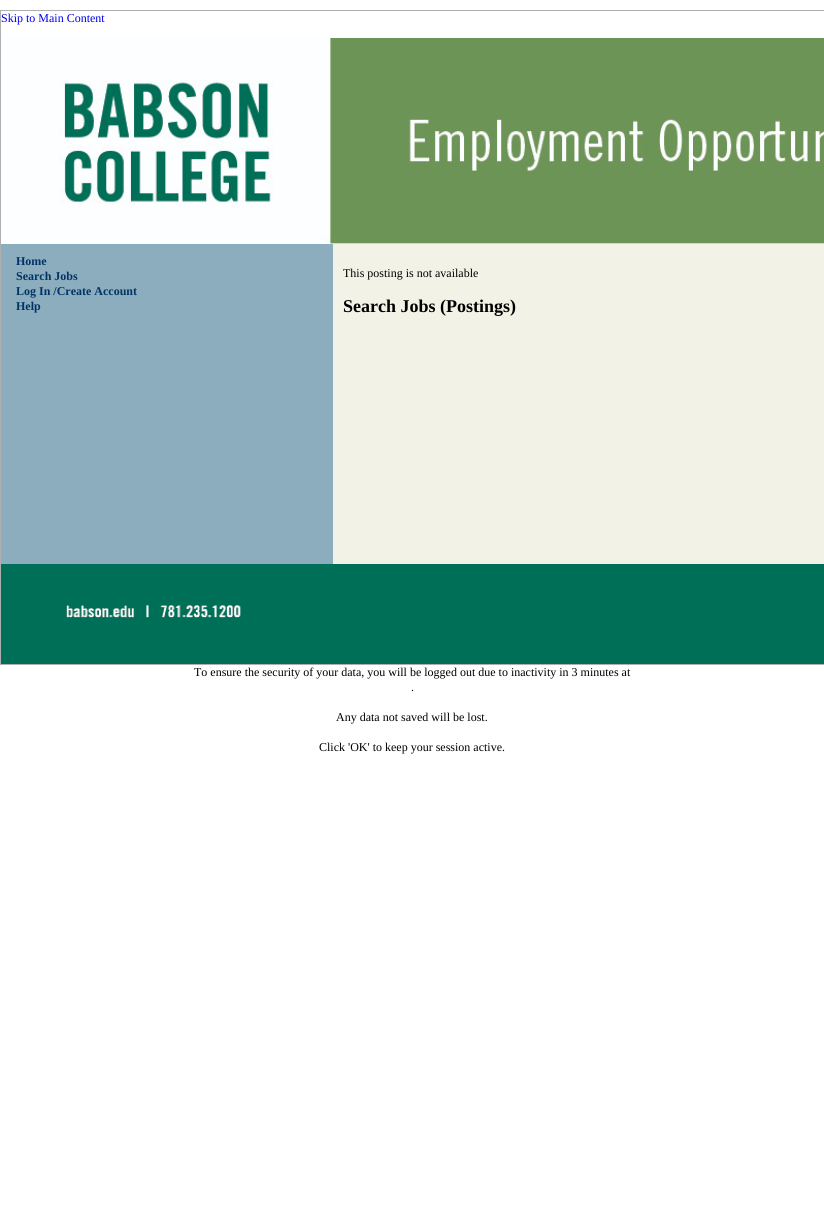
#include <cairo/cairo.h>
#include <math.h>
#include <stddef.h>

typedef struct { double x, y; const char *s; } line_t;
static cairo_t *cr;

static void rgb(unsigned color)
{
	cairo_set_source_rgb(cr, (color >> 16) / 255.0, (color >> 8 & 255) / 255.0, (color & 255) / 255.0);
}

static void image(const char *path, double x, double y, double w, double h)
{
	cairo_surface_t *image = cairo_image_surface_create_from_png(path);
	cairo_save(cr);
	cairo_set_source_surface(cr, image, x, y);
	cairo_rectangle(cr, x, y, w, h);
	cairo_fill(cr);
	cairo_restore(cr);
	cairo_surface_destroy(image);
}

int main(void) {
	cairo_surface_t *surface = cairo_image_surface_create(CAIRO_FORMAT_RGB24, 824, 1221);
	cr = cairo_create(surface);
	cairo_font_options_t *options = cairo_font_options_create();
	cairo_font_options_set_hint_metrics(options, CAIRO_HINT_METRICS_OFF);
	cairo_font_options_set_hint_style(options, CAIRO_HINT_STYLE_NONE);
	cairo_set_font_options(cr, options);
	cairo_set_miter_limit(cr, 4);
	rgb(0xffffff);
	cairo_paint(cr);
	cairo_rectangle(cr, 0.5, 10.5, 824, 654);
	rgb(0xafafaf);
	cairo_set_line_width(cr, 1);
	cairo_stroke(cr);
	image("img/1.png", 1, 38, 823, 206);
	rgb(0x8cadbd);
	cairo_rectangle(cr, 1, 244, 332, 320);
	cairo_fill(cr);
	rgb(0xf2f2e6);
	cairo_rectangle(cr, 333, 244, 491, 320);
	cairo_fill(cr);
	image("img/2.png", 1, 564, 823, 100);
	cairo_select_font_face(cr, "Liberation Serif", CAIRO_FONT_SLANT_NORMAL, CAIRO_FONT_WEIGHT_NORMAL);
	cairo_set_font_size(cr, 12);
	rgb(0x0000ee);
	cairo_move_to(cr, 1, 22);
	cairo_show_text(cr, "Skip to Main Content");
	cairo_select_font_face(cr, "Liberation Serif", CAIRO_FONT_SLANT_NORMAL, CAIRO_FONT_WEIGHT_BOLD);
	rgb(0x003366);
	{
		static const line_t items[] = {
			{16, 265, "Home"},
			{16, 280, "Search Jobs"},
			{16, 295, "Log In /Create Account"},
			{16, 310, "Help"},
		};
		for (size_t i = 0; i < sizeof items / sizeof *items; i++) {
			cairo_move_to(cr, items[i].x, items[i].y);
			cairo_show_text(cr, items[i].s);
		}
	}
	cairo_select_font_face(cr, "Liberation Serif", CAIRO_FONT_SLANT_NORMAL, CAIRO_FONT_WEIGHT_NORMAL);
	rgb(0x000000);
	cairo_move_to(cr, 343, 277);
	cairo_show_text(cr, "This posting is not available");
	cairo_select_font_face(cr, "Liberation Serif", CAIRO_FONT_SLANT_NORMAL, CAIRO_FONT_WEIGHT_BOLD);
	cairo_set_font_size(cr, 18);
	cairo_move_to(cr, 343, 312);
	cairo_show_text(cr, "Search Jobs (Postings)");
	cairo_select_font_face(cr, "Liberation Serif", CAIRO_FONT_SLANT_NORMAL, CAIRO_FONT_WEIGHT_NORMAL);
	cairo_set_font_size(cr, 12);
	{
		static const line_t items[] = {
			{194, 676, "To ensure the security of your data, you will be logged out due to inactivity in 3 minutes at"},
			{411, 691, "."},
			{336, 721, "Any data not saved will be lost."},
			{319, 751, "Click 'OK' to keep your session active."},
		};
		for (size_t i = 0; i < sizeof items / sizeof *items; i++) {
			cairo_move_to(cr, items[i].x, items[i].y);
			cairo_show_text(cr, items[i].s);
		}
	}
	cairo_surface_write_to_png(surface, "page.png");
	cairo_font_options_destroy(options);
	cairo_destroy(cr);
	cairo_surface_destroy(surface);
	return 0;
}
